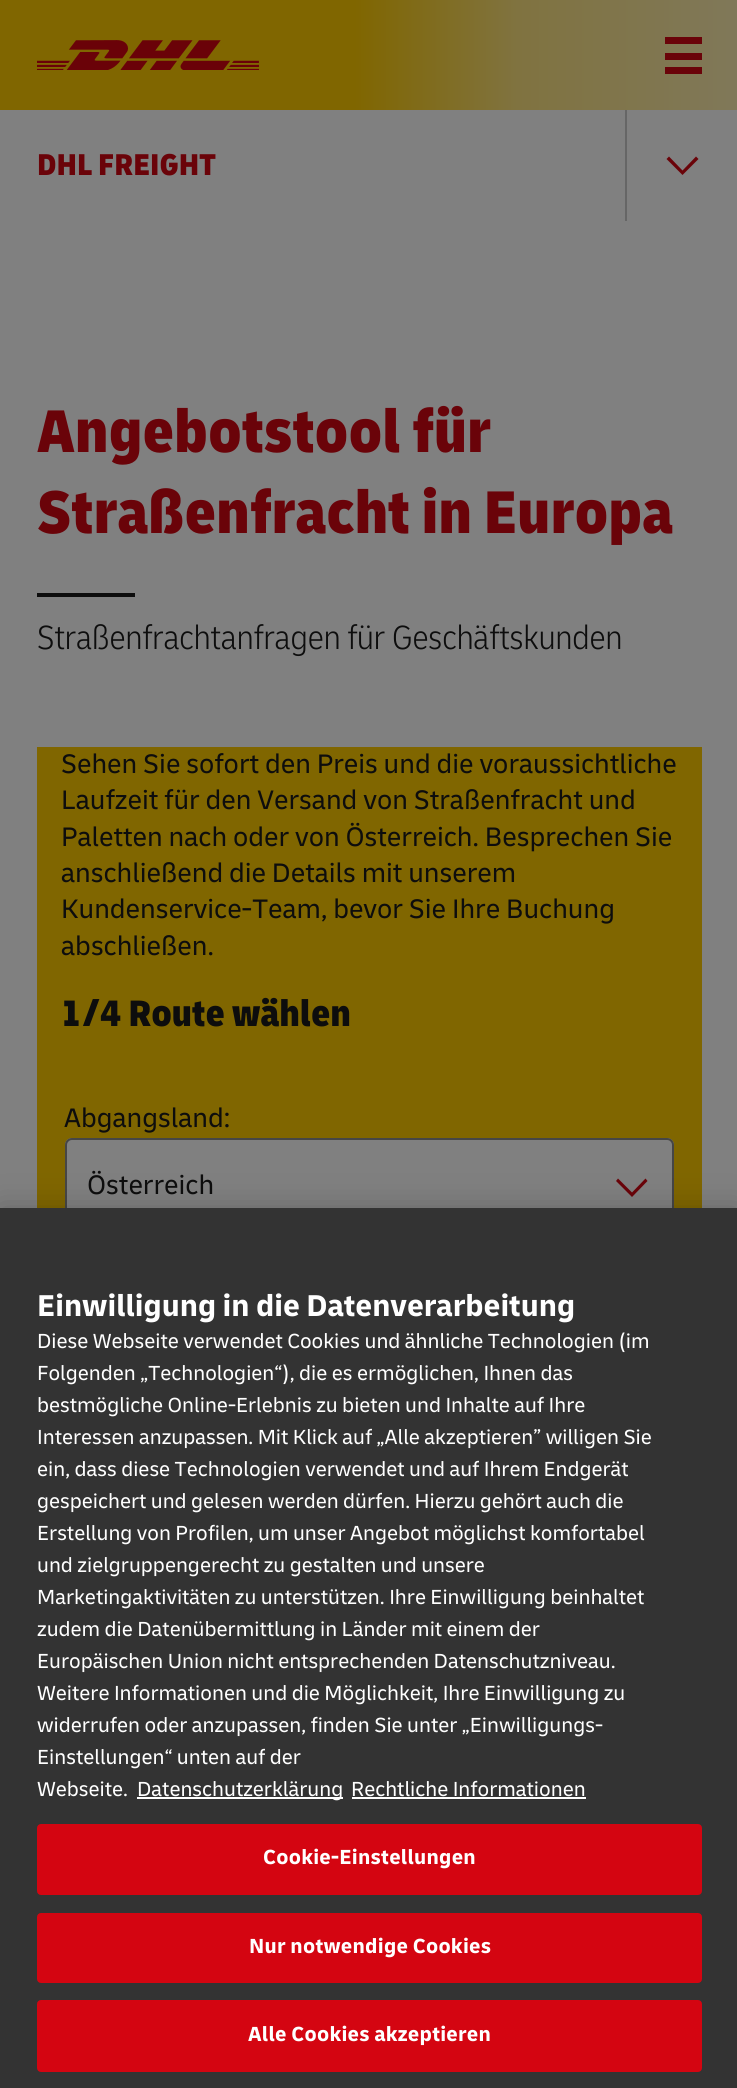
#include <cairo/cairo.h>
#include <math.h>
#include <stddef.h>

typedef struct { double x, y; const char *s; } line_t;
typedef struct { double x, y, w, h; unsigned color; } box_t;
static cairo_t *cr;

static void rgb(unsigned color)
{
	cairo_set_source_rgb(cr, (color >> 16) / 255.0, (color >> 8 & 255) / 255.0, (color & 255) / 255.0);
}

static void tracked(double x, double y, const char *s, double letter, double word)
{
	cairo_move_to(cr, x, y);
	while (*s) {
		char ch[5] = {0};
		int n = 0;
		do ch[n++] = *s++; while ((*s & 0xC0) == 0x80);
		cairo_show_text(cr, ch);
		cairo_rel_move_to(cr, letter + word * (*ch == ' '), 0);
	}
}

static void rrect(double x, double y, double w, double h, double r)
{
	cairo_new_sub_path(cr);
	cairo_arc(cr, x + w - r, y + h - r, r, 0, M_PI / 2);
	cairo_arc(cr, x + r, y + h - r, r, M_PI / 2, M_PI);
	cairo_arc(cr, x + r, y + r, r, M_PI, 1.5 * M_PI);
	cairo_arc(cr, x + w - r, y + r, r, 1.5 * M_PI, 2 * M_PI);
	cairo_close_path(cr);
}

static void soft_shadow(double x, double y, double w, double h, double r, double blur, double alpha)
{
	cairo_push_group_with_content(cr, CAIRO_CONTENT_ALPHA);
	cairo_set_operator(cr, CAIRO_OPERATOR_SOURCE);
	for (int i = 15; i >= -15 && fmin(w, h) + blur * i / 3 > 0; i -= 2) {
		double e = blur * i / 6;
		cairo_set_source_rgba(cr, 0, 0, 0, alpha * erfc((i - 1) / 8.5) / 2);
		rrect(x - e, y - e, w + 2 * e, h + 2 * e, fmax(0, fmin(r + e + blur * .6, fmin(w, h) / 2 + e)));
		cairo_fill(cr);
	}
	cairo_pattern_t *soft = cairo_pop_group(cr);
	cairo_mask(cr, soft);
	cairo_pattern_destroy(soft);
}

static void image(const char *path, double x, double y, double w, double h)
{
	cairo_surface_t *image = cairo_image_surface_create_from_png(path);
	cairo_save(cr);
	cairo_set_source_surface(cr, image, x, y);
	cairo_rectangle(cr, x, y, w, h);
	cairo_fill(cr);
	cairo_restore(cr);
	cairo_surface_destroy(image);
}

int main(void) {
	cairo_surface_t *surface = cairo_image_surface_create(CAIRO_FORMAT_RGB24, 737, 2088);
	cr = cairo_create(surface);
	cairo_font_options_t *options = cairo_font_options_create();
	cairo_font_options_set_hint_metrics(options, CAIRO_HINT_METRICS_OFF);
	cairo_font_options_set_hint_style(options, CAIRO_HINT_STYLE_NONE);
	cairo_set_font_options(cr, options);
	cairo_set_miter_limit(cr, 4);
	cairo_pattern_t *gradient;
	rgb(0x808080);
	cairo_paint(cr);
	gradient = cairo_pattern_create_linear(0, 55, 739, 55);
	cairo_pattern_add_color_stop_rgba(gradient, 0, 0.502, 0.4, 0, 1);
	cairo_pattern_add_color_stop_rgba(gradient, 0.48, 0.502, 0.4, 0, 1);
	cairo_pattern_add_color_stop_rgba(gradient, 0.7, 0.502, 0.451, 0.251, 1);
	cairo_pattern_add_color_stop_rgba(gradient, 1, 0.502, 0.471, 0.349, 1);
	cairo_set_source(cr, gradient);
	cairo_pattern_destroy(gradient);
	cairo_rectangle(cr, 0, 0, 737, 110);
	cairo_fill(cr);
	image("img/1.png", 37, 40, 222, 30);
	{
		static const box_t items[] = {
			{665, 37, 37, 7, 0x6a0309},
			{665, 53, 37, 7, 0x6a0309},
			{665, 67, 37, 7, 0x6a0309},
			{625, 110, 2, 111, 0x666666},
		};
		for (size_t i = 0; i < sizeof items / sizeof *items; i++) {
			rgb(items[i].color);
			cairo_rectangle(cr, items[i].x, items[i].y, items[i].w, items[i].h);
			cairo_fill(cr);
		}
	}
	rgb(0x6a0309);
	cairo_new_path(cr);
	cairo_move_to(cr, 682.5, 175);
	cairo_line_to(cr, 666.5, 159);
	cairo_line_to(cr, 669, 156.5);
	cairo_line_to(cr, 682.5, 170.5);
	cairo_line_to(cr, 696, 156.5);
	cairo_line_to(cr, 698.5, 159);
	cairo_close_path(cr);
	cairo_fill(cr);
	rgb(0x0d0d0d);
	cairo_rectangle(cr, 37, 593, 98, 4);
	cairo_fill(cr);
	rgb(0x806600);
	cairo_rectangle(cr, 37, 747, 665, 461);
	cairo_fill(cr);
	rgb(0x808080);
	rrect(65, 1138, 609, 98, 7);
	cairo_fill(cr);
	rgb(0x6a0309);
	cairo_new_path(cr);
	cairo_move_to(cr, 632, 1197);
	cairo_line_to(cr, 616, 1181);
	cairo_line_to(cr, 618, 1178.5);
	cairo_line_to(cr, 632, 1192.5);
	cairo_line_to(cr, 645.5, 1178.5);
	cairo_line_to(cr, 647.5, 1181);
	cairo_close_path(cr);
	cairo_fill(cr);
	rrect(66, 1139, 607, 96, 6);
	rgb(0x464646);
	cairo_stroke(cr);
	rgb(0x000000);
	soft_shadow(0, 1208, 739, 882, 0, 16, 0.2);
	{
		static const box_t items[] = {
			{0, 1208, 737, 880, 0x333333},
			{137, 1797, 206, 2, 0xffffff},
			{352, 1797, 234, 2, 0xffffff},
		};
		for (size_t i = 0; i < sizeof items / sizeof *items; i++) {
			rgb(items[i].color);
			cairo_rectangle(cr, items[i].x, items[i].y, items[i].w, items[i].h);
			cairo_fill(cr);
		}
	}
	rgb(0xd40511);
	rrect(38, 1825, 663, 69, 3);
	cairo_fill_preserve(cr);
	cairo_stroke(cr);
	rrect(38, 1914, 663, 68, 3);
	cairo_fill_preserve(cr);
	cairo_stroke(cr);
	rrect(38, 2001, 663, 70, 3);
	cairo_fill_preserve(cr);
	cairo_stroke(cr);
	cairo_select_font_face(cr, "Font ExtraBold", CAIRO_FONT_SLANT_NORMAL, CAIRO_FONT_WEIGHT_NORMAL);
	cairo_set_font_size(cr, 31.5);
	rgb(0x6a0309);
	cairo_move_to(cr, 37, 175);
	cairo_show_text(cr, "DHL FREIGHT");
	cairo_set_font_size(cr, 63);
	cairo_move_to(cr, 37, 452);
	cairo_show_text(cr, "Angebotstool für");
	cairo_move_to(cr, 37, 533);
	cairo_show_text(cr, "Straßenfracht in Europa");
	cairo_select_font_face(cr, "Font Light", CAIRO_FONT_SLANT_NORMAL, CAIRO_FONT_WEIGHT_NORMAL);
	cairo_set_font_size(cr, 35);
	rgb(0x0d0d0d);
	cairo_move_to(cr, 37, 649);
	cairo_show_text(cr, "Straßenfrachtanfragen für Geschäftskunden");
	cairo_select_font_face(cr, "Font", CAIRO_FONT_SLANT_NORMAL, CAIRO_FONT_WEIGHT_NORMAL);
	cairo_set_font_size(cr, 28);
	{
		static const line_t items[] = {
			{61, 773, "Sehen Sie sofort den Preis und die voraussichtliche"},
			{61, 809, "Laufzeit für den Versand von Straßenfracht und"},
			{61, 846, "Paletten nach oder von Österreich. Besprechen Sie"},
			{61, 882, "anschließend die Details mit unserem"},
			{61, 918, "Kundenservice-Team, bevor Sie Ihre Buchung"},
			{61, 955, "abschließen."},
		};
		for (size_t i = 0; i < sizeof items / sizeof *items; i++) {
			cairo_move_to(cr, items[i].x, items[i].y);
			cairo_show_text(cr, items[i].s);
		}
	}
	cairo_select_font_face(cr, "Font ExtraBold", CAIRO_FONT_SLANT_NORMAL, CAIRO_FONT_WEIGHT_NORMAL);
	cairo_set_font_size(cr, 38.5);
	cairo_move_to(cr, 61, 1026);
	cairo_show_text(cr, "1/4 Route wählen");
	cairo_select_font_face(cr, "Font", CAIRO_FONT_SLANT_NORMAL, CAIRO_FONT_WEIGHT_NORMAL);
	cairo_set_font_size(cr, 28);
	cairo_move_to(cr, 64, 1127);
	cairo_show_text(cr, "Abgangsland:");
	cairo_move_to(cr, 87, 1194);
	cairo_show_text(cr, "Österreich");
	cairo_select_font_face(cr, "Font", CAIRO_FONT_SLANT_NORMAL, CAIRO_FONT_WEIGHT_BOLD);
	cairo_set_font_size(cr, 31.5);
	rgb(0xffffff);
	cairo_move_to(cr, 37, 1316);
	cairo_show_text(cr, "Einwilligung in die Datenverarbeitung");
	cairo_select_font_face(cr, "Font", CAIRO_FONT_SLANT_NORMAL, CAIRO_FONT_WEIGHT_NORMAL);
	cairo_set_font_size(cr, 21.35);
	{
		static const line_t items[] = {
			{37, 1348, "Diese Webseite verwendet Cookies und ähnliche Technologien (im"},
			{37, 1380, "Folgenden „Technologien“), die es ermöglichen, Ihnen das"},
			{37, 1412, "bestmögliche Online-Erlebnis zu bieten und Inhalte auf Ihre"},
			{37, 1444, "Interessen anzupassen. Mit Klick auf „Alle akzeptieren” willigen Sie"},
			{37, 1476, "ein, dass diese Technologien verwendet und auf Ihrem Endgerät"},
			{37, 1508, "gespeichert und gelesen werden dürfen. Hierzu gehört auch die"},
			{37, 1540, "Erstellung von Profilen, um unser Angebot möglichst komfortabel"},
			{37, 1572, "und zielgruppengerecht zu gestalten und unsere"},
			{37, 1604, "Marketingaktivitäten zu unterstützen. Ihre Einwilligung beinhaltet"},
			{37, 1636, "zudem die Datenübermittlung in Länder mit einem der"},
			{37, 1668, "Europäischen Union nicht entsprechenden Datenschutzniveau."},
			{37, 1700, "Weitere Informationen und die Möglichkeit, Ihre Einwilligung zu"},
			{37, 1732, "widerrufen oder anzupassen, finden Sie unter „Einwilligungs-"},
			{37, 1764, "Einstellungen“ unten auf der"},
			{37, 1796, "Webseite."},
			{137, 1796, "Datenschutzerklärung"},
			{351, 1796, "Rechtliche Informationen"},
		};
		for (size_t i = 0; i < sizeof items / sizeof *items; i++) {
			cairo_move_to(cr, items[i].x, items[i].y);
			cairo_show_text(cr, items[i].s);
		}
	}
	cairo_select_font_face(cr, "Font", CAIRO_FONT_SLANT_NORMAL, CAIRO_FONT_WEIGHT_BOLD);
	{
		static const line_t items[] = {
			{263, 1864, "Cookie-Einstellungen"},
			{249, 1953, "Nur notwendige Cookies"},
			{248, 2041, "Alle Cookies akzeptieren"},
		};
		for (size_t i = 0; i < sizeof items / sizeof *items; i++) {
			tracked(items[i].x, items[i].y, items[i].s, 0.25, 0);
		}
	}
	cairo_surface_write_to_png(surface, "page.png");
	cairo_font_options_destroy(options);
	cairo_destroy(cr);
	cairo_surface_destroy(surface);
	return 0;
}
